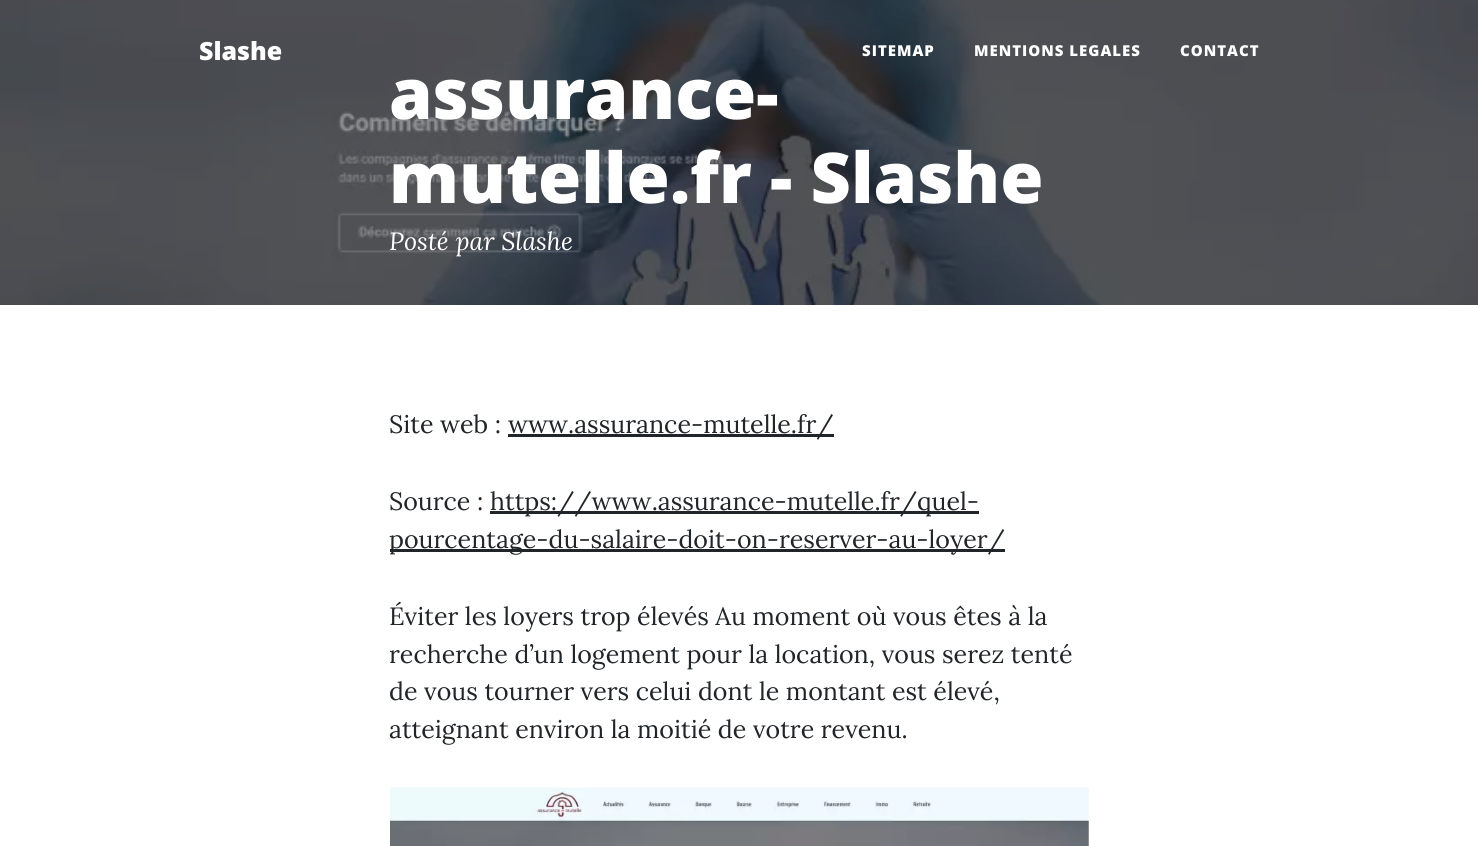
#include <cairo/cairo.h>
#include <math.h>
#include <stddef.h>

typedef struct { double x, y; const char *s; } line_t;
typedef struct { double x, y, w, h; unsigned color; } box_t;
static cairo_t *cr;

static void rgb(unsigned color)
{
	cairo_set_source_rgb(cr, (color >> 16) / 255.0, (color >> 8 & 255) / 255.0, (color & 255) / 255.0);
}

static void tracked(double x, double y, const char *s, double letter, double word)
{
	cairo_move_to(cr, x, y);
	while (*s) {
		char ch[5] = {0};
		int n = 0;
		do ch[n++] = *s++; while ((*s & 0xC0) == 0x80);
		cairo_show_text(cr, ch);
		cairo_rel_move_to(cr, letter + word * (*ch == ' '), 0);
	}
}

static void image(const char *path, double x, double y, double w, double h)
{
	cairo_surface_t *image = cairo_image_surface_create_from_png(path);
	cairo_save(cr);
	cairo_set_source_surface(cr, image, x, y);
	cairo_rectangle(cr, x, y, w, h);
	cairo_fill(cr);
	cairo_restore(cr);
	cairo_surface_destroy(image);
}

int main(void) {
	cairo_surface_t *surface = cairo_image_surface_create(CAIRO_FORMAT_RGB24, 1478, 846);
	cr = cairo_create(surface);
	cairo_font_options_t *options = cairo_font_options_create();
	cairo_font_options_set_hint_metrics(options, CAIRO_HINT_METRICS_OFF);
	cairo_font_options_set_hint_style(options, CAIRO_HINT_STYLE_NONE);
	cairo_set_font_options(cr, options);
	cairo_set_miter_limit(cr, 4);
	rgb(0xffffff);
	cairo_paint(cr);
	image("img/1.png", 0, 0, 1478, 305);
	{
		static const box_t items[] = {
			{508, 434, 326, 3, 0x212529},
			{490, 511, 489, 3, 0x212529},
			{390, 549, 615, 3, 0x212529},
		};
		for (size_t i = 0; i < sizeof items / sizeof *items; i++) {
			rgb(items[i].color);
			cairo_rectangle(cr, items[i].x, items[i].y, items[i].w, items[i].h);
			cairo_fill(cr);
		}
	}
	image("img/2.png", 390, 787, 699, 59);
	cairo_select_font_face(cr, "Open Sans ExtraBold", CAIRO_FONT_SLANT_NORMAL, CAIRO_FONT_WEIGHT_NORMAL);
	cairo_set_font_size(cr, 25);
	rgb(0xffffff);
	cairo_move_to(cr, 199, 60);
	cairo_show_text(cr, "Slashe");
	cairo_set_font_size(cr, 15);
	{
		static const line_t items[] = {
			{862, 56, "SITEMAP"},
			{974, 56, "MENTIONS LEGALES"},
			{1180, 56, "CONTACT"},
		};
		for (size_t i = 0; i < sizeof items / sizeof *items; i++) {
			tracked(items[i].x, items[i].y, items[i].s, 1, 0);
		}
	}
	cairo_set_font_size(cr, 70);
	cairo_move_to(cr, 389, 119);
	cairo_show_text(cr, "assurance-");
	cairo_move_to(cr, 389, 203);
	cairo_show_text(cr, "mutelle.fr - Slashe");
	cairo_select_font_face(cr, "Lora", CAIRO_FONT_SLANT_ITALIC, CAIRO_FONT_WEIGHT_NORMAL);
	cairo_set_font_size(cr, 25);
	cairo_move_to(cr, 389, 250);
	cairo_show_text(cr, "Posté par Slashe");
	cairo_select_font_face(cr, "Lora", CAIRO_FONT_SLANT_NORMAL, CAIRO_FONT_WEIGHT_NORMAL);
	rgb(0x212529);
	{
		static const line_t items[] = {
			{389, 433, "Site web :"},
			{508, 433, "www.assurance-mutelle.fr/"},
			{389, 510, "Source :"},
			{490, 510, "https://www.assurance-mutelle.fr/quel-"},
			{389, 548, "pourcentage-du-salaire-doit-on-reserver-au-loyer/"},
			{389, 625, "Éviter les loyers trop élevés Au moment où vous êtes à la"},
			{389, 663, "recherche d’un logement pour la location, vous serez tenté"},
			{389, 700, "de vous tourner vers celui dont le montant est élevé,"},
			{389, 738, "atteignant environ la moitié de votre revenu."},
		};
		for (size_t i = 0; i < sizeof items / sizeof *items; i++) {
			cairo_move_to(cr, items[i].x, items[i].y);
			cairo_show_text(cr, items[i].s);
		}
	}
	cairo_surface_write_to_png(surface, "page.png");
	cairo_font_options_destroy(options);
	cairo_destroy(cr);
	cairo_surface_destroy(surface);
	return 0;
}
